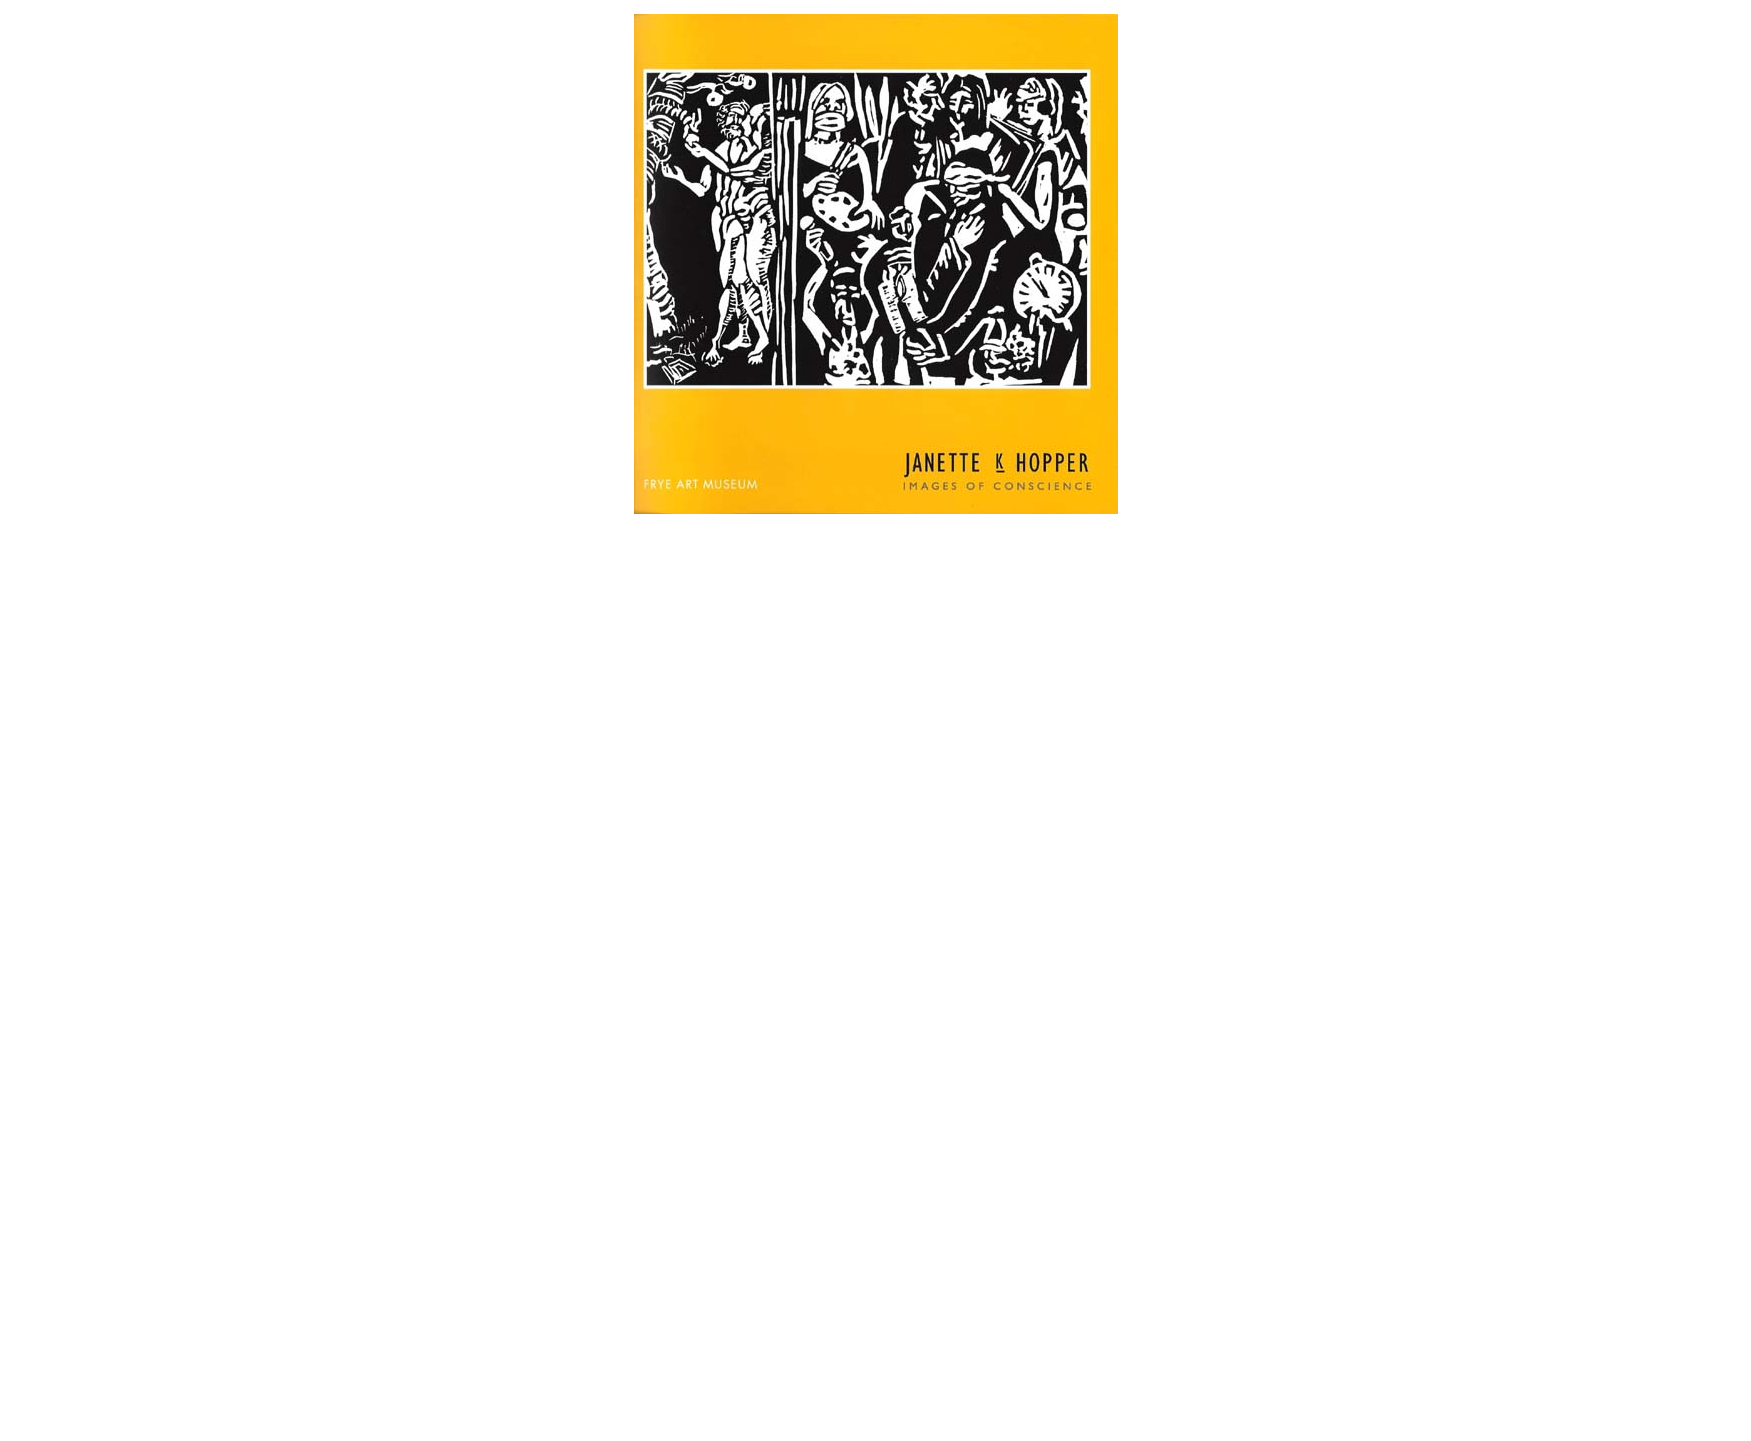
#include <cairo/cairo.h>
#include <math.h>
#include <stddef.h>

static cairo_t *cr;

static void rgb(unsigned color)
{
	cairo_set_source_rgb(cr, (color >> 16) / 255.0, (color >> 8 & 255) / 255.0, (color & 255) / 255.0);
}

static void image(const char *path, double x, double y, double w, double h)
{
	cairo_surface_t *image = cairo_image_surface_create_from_png(path);
	cairo_save(cr);
	cairo_set_source_surface(cr, image, x, y);
	cairo_rectangle(cr, x, y, w, h);
	cairo_fill(cr);
	cairo_restore(cr);
	cairo_surface_destroy(image);
}

int main(void) {
	cairo_surface_t *surface = cairo_image_surface_create(CAIRO_FORMAT_RGB24, 1751, 1441);
	cr = cairo_create(surface);
	cairo_font_options_t *options = cairo_font_options_create();
	cairo_font_options_set_hint_metrics(options, CAIRO_HINT_METRICS_OFF);
	cairo_font_options_set_hint_style(options, CAIRO_HINT_STYLE_NONE);
	cairo_set_font_options(cr, options);
	cairo_set_miter_limit(cr, 4);
	rgb(0xffffff);
	cairo_paint(cr);
	image("img/1.png", 634, 14, 484, 500);
	cairo_surface_write_to_png(surface, "page.png");
	cairo_font_options_destroy(options);
	cairo_destroy(cr);
	cairo_surface_destroy(surface);
	return 0;
}
